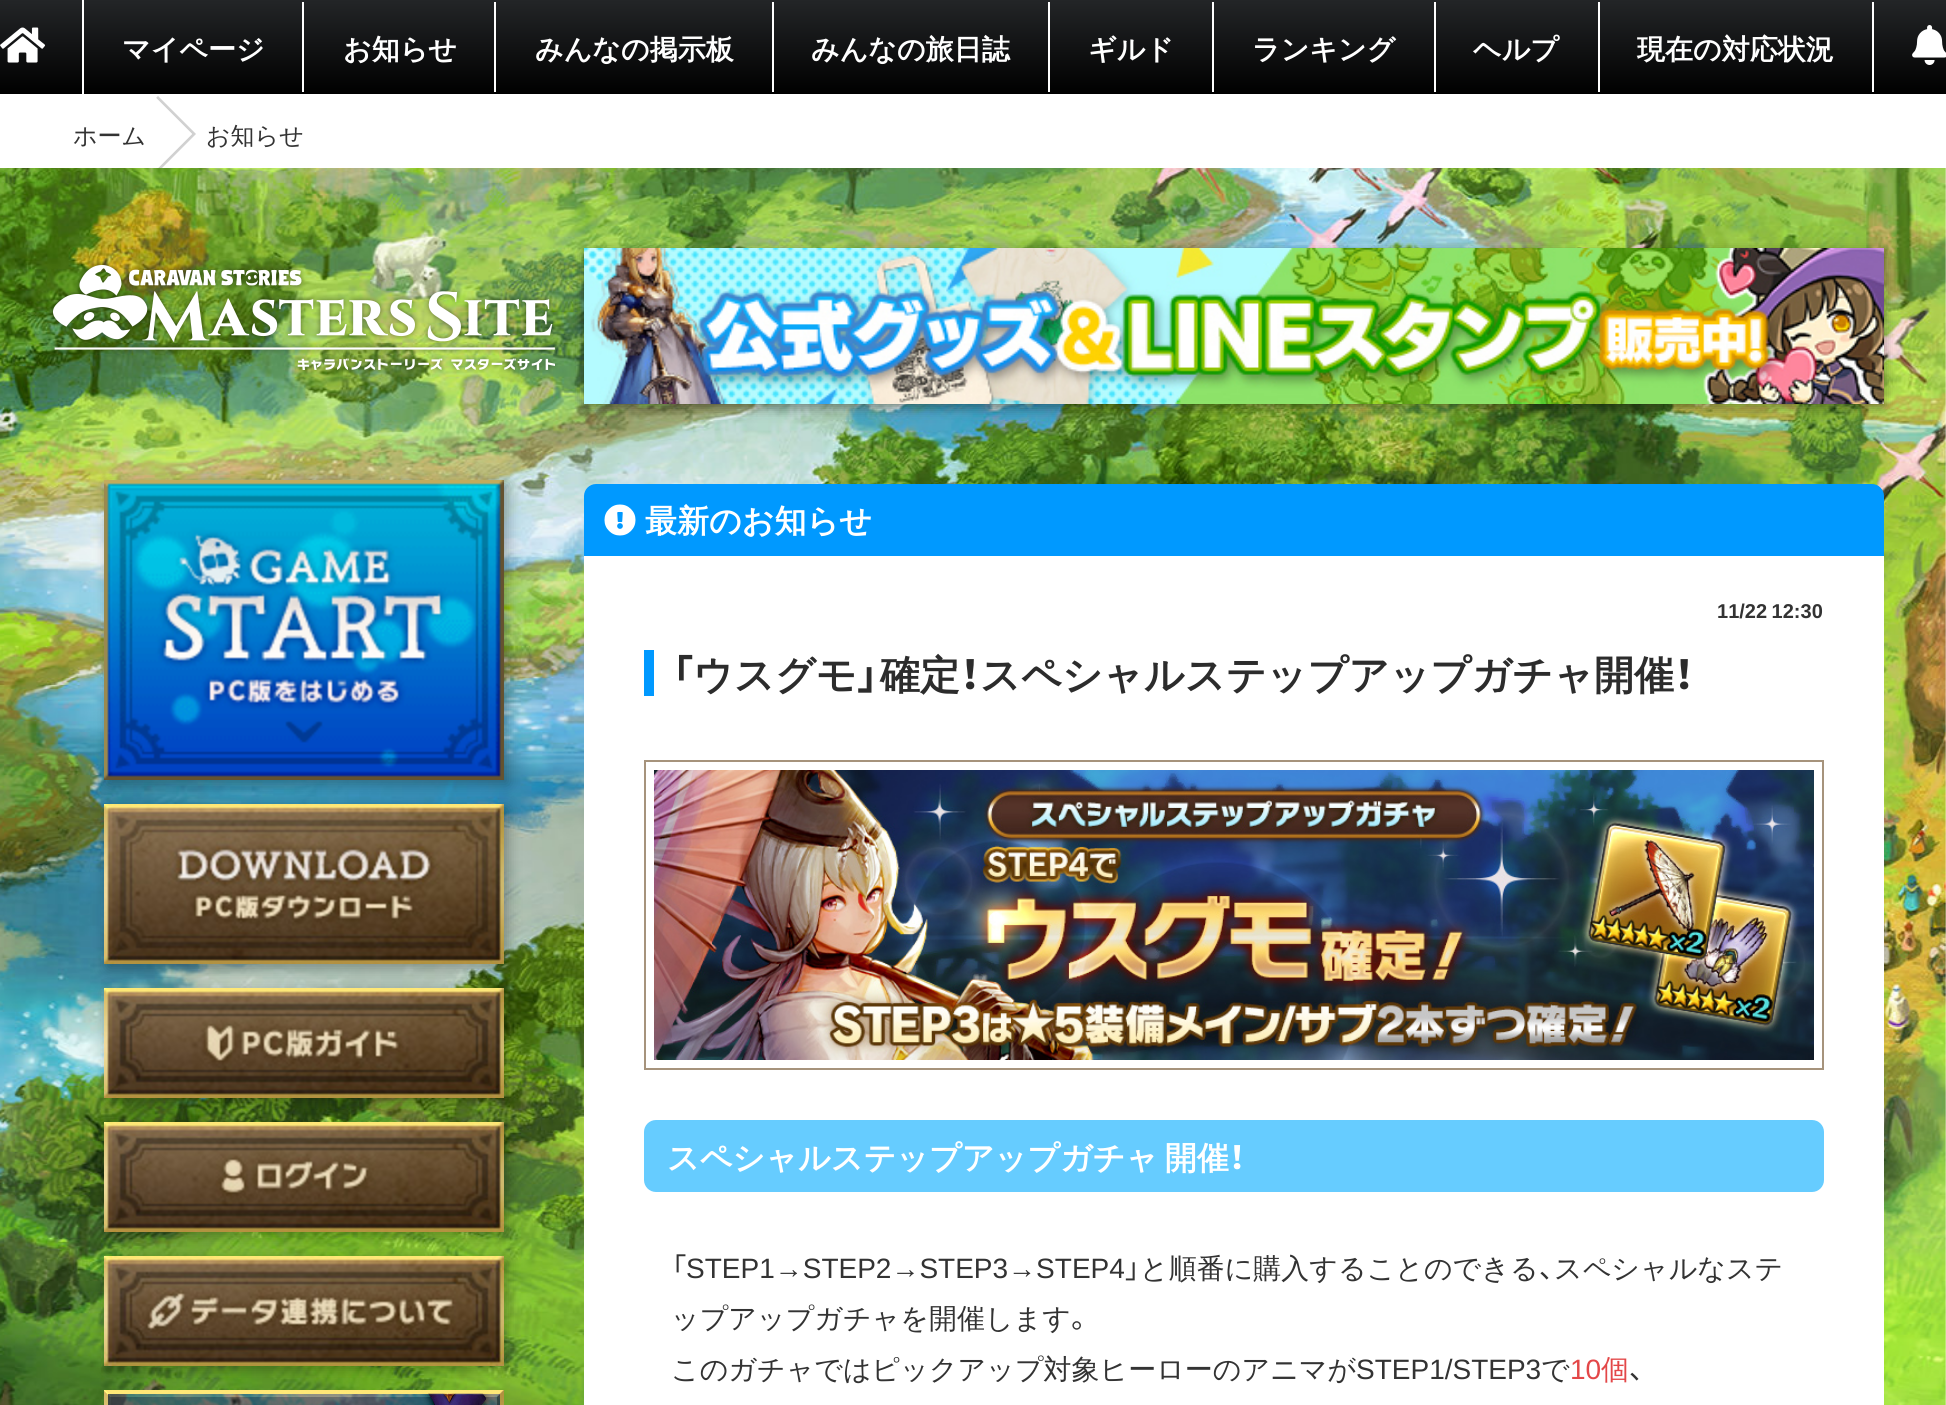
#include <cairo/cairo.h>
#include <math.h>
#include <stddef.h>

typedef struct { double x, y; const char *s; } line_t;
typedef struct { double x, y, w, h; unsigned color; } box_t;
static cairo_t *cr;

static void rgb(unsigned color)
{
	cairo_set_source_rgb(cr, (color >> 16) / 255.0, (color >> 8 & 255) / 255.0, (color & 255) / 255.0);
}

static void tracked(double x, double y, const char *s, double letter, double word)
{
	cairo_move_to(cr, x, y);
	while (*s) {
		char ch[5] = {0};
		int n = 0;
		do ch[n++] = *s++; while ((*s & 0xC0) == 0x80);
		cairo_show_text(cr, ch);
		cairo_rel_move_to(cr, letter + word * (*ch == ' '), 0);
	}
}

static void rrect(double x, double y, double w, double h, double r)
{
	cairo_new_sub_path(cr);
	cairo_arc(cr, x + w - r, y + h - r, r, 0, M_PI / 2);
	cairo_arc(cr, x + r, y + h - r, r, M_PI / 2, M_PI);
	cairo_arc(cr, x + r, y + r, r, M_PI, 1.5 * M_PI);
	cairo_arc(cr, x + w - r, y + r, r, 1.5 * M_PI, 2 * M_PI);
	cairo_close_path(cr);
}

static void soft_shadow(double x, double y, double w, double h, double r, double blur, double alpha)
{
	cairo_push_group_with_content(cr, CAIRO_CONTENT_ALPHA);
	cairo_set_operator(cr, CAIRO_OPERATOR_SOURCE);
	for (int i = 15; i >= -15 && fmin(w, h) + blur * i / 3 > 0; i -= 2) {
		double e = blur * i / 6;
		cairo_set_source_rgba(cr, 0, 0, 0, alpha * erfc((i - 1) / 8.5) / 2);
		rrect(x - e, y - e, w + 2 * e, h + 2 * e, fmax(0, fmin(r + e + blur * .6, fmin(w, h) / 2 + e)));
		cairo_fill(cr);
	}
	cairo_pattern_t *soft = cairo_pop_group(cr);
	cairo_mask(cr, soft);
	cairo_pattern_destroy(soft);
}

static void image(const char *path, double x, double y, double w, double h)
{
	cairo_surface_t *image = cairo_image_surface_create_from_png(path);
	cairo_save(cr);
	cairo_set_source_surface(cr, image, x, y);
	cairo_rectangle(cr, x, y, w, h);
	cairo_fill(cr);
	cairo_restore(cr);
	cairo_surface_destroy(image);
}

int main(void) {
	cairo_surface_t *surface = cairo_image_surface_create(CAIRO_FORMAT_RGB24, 1946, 1405);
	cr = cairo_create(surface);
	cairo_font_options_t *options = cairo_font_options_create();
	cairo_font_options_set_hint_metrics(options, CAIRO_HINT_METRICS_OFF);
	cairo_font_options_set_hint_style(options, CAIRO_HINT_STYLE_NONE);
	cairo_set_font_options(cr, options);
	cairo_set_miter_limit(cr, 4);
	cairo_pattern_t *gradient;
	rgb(0xffffff);
	cairo_paint(cr);
	gradient = cairo_pattern_create_linear(973, 94, 973, 0);
	cairo_pattern_add_color_stop_rgba(gradient, 0, 0, 0, 0, 1);
	cairo_pattern_add_color_stop_rgba(gradient, 1, 0.137, 0.145, 0.153, 1);
	cairo_set_source(cr, gradient);
	cairo_pattern_destroy(gradient);
	cairo_rectangle(cr, 0, 0, 1946, 94);
	cairo_fill(cr);
	rgb(0xffffff);
	cairo_rectangle(cr, 82, 0, 2, 94);
	cairo_fill(cr);
	image("img/1.png", 0, 27, 46, 36);
	{
		static const box_t items[] = {
			{302, 2, 2, 90, 0xffffff},
			{494, 2, 2, 90, 0xffffff},
			{772, 2, 2, 90, 0xffffff},
			{1048, 2, 2, 90, 0xffffff},
			{1212, 2, 2, 90, 0xffffff},
			{1434, 2, 2, 90, 0xffffff},
			{1598, 2, 2, 90, 0xffffff},
			{1872, 2, 2, 90, 0xffffff},
		};
		for (size_t i = 0; i < sizeof items / sizeof *items; i++) {
			rgb(items[i].color);
			cairo_rectangle(cr, items[i].x, items[i].y, items[i].w, items[i].h);
			cairo_fill(cr);
		}
	}
	image("img/2.png", 1912, 25, 34, 40);
	cairo_save(cr);
	cairo_rectangle(cr, 64, 94, 1820, 74);
	cairo_clip(cr);
	rgb(0xd1d1d1);
	cairo_new_path(cr);
	cairo_move_to(cr, 158, 96);
	cairo_line_to(cr, 154, 100);
	cairo_line_to(cr, 156, 98);
	cairo_line_to(cr, 192, 134);
	cairo_line_to(cr, 156, 170);
	cairo_line_to(cr, 155, 169);
	cairo_line_to(cr, 158, 172);
	cairo_line_to(cr, 196, 134);
	cairo_close_path(cr);
	cairo_fill(cr);
	rgb(0xffffff);
	cairo_new_path(cr);
	cairo_move_to(cr, 156, 98);
	cairo_line_to(cr, 192, 134);
	cairo_line_to(cr, 156, 170);
	cairo_curve_to(cr, 136, 150, 136, 118, 156, 98);
	cairo_close_path(cr);
	cairo_fill(cr);
	cairo_restore(cr);
	image("img/3.png", 0, 168, 1946, 1237);
	image("img/4.png", 49, 261, 509, 112);
	rgb(0x000000);
	soft_shadow(108, 484, 400, 300, 0, 7, 0.3);
	image("img/5.png", 104, 480, 400, 300);
	soft_shadow(108, 808, 400, 160, 0, 7, 0.3);
	image("img/6.png", 104, 804, 400, 160);
	soft_shadow(108, 992, 400, 110, 0, 7, 0.3);
	image("img/7.png", 104, 988, 400, 110);
	soft_shadow(108, 1126, 400, 110, 0, 7, 0.3);
	image("img/8.png", 104, 1122, 400, 110);
	soft_shadow(108, 1260, 400, 110, 0, 7, 0.3);
	image("img/9.png", 104, 1256, 400, 110);
	image("img/10.png", 104, 1390, 400, 15);
	soft_shadow(584, 252, 1300, 156, 0, 6, 0.4);
	image("img/11.png", 584, 248, 1300, 156);
	rgb(0x0099ff);
	cairo_new_path(cr);
	cairo_move_to(cr, 596, 484);
	cairo_line_to(cr, 1872, 484);
	cairo_curve_to(cr, 1878.5, 484, 1884, 489.5, 1884, 496);
	cairo_line_to(cr, 1884, 556);
	cairo_line_to(cr, 584, 556);
	cairo_line_to(cr, 584, 496);
	cairo_curve_to(cr, 584, 489.5, 589.5, 484, 596, 484);
	cairo_close_path(cr);
	cairo_fill(cr);
	image("img/12.png", 604, 504, 32, 32);
	rgb(0xffffff);
	cairo_rectangle(cr, 584, 556, 1300, 849);
	cairo_fill(cr);
	rgb(0x0099ff);
	cairo_rectangle(cr, 644, 650, 10, 46);
	cairo_fill(cr);
	cairo_rectangle(cr, 645, 761, 1178, 308);
	rgb(0xa6937c);
	cairo_stroke(cr);
	image("img/13.png", 654, 770, 1160, 290);
	rgb(0x66ccff);
	rrect(644, 1120, 1180, 72, 12);
	cairo_fill(cr);
	cairo_select_font_face(cr, "WenQuanYi Zen Hei", CAIRO_FONT_SLANT_NORMAL, CAIRO_FONT_WEIGHT_BOLD);
	cairo_set_font_size(cr, 28);
	rgb(0xffffff);
	{
		static const line_t items[] = {
			{122, 59, "マイページ"},
			{343, 59, "お知らせ"},
			{535, 59, "みんなの掲示板"},
			{811, 59, "みんなの旅日誌"},
			{1088, 59, "ギルド"},
			{1252, 59, "ランキング"},
			{1473, 59, "ヘルプ"},
			{1637, 59, "現在の対応状況"},
		};
		for (size_t i = 0; i < sizeof items / sizeof *items; i++) {
			cairo_move_to(cr, items[i].x, items[i].y);
			cairo_show_text(cr, items[i].s);
		}
	}
	cairo_select_font_face(cr, "WenQuanYi Zen Hei Medium", CAIRO_FONT_SLANT_NORMAL, CAIRO_FONT_WEIGHT_NORMAL);
	cairo_set_font_size(cr, 24);
	rgb(0x333333);
	cairo_move_to(cr, 73, 144);
	cairo_show_text(cr, "ホーム");
	cairo_move_to(cr, 206, 144);
	cairo_show_text(cr, "お知らせ");
	cairo_select_font_face(cr, "WenQuanYi Zen Hei", CAIRO_FONT_SLANT_NORMAL, CAIRO_FONT_WEIGHT_BOLD);
	cairo_set_font_size(cr, 32);
	rgb(0xffffff);
	cairo_move_to(cr, 645, 532);
	cairo_show_text(cr, "最新のお知らせ");
	cairo_select_font_face(cr, "Liberation Sans", CAIRO_FONT_SLANT_NORMAL, CAIRO_FONT_WEIGHT_BOLD);
	cairo_set_font_size(cr, 20);
	rgb(0x333333);
	tracked(1717, 618, "11/22 12:30", 0, -1);
	cairo_select_font_face(cr, "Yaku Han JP", CAIRO_FONT_SLANT_NORMAL, CAIRO_FONT_WEIGHT_BOLD);
	cairo_set_font_size(cr, 40);
	rgb(0x2c2c2c);
	cairo_move_to(cr, 671, 689);
	cairo_show_text(cr, "「");
	cairo_select_font_face(cr, "WenQuanYi Zen Hei", CAIRO_FONT_SLANT_NORMAL, CAIRO_FONT_WEIGHT_BOLD);
	cairo_move_to(cr, 693, 689);
	cairo_show_text(cr, "ウスグモ");
	cairo_select_font_face(cr, "Yaku Han JP", CAIRO_FONT_SLANT_NORMAL, CAIRO_FONT_WEIGHT_BOLD);
	cairo_move_to(cr, 857, 689);
	cairo_show_text(cr, "」");
	cairo_select_font_face(cr, "WenQuanYi Zen Hei", CAIRO_FONT_SLANT_NORMAL, CAIRO_FONT_WEIGHT_BOLD);
	cairo_move_to(cr, 880, 689);
	cairo_show_text(cr, "確定");
	cairo_select_font_face(cr, "Yaku Han JP", CAIRO_FONT_SLANT_NORMAL, CAIRO_FONT_WEIGHT_BOLD);
	cairo_move_to(cr, 960, 689);
	cairo_show_text(cr, "！");
	cairo_select_font_face(cr, "WenQuanYi Zen Hei", CAIRO_FONT_SLANT_NORMAL, CAIRO_FONT_WEIGHT_BOLD);
	cairo_move_to(cr, 980, 689);
	cairo_show_text(cr, "スペシャルステップアップガチャ開催");
	cairo_select_font_face(cr, "Yaku Han JP", CAIRO_FONT_SLANT_NORMAL, CAIRO_FONT_WEIGHT_BOLD);
	cairo_move_to(cr, 1674, 689);
	cairo_show_text(cr, "！");
	cairo_select_font_face(cr, "WenQuanYi Zen Hei", CAIRO_FONT_SLANT_NORMAL, CAIRO_FONT_WEIGHT_BOLD);
	cairo_set_font_size(cr, 32);
	rgb(0xffffff);
	tracked(667, 1169, "スペシャルステップアップガチャ 開催", 0, -3);
	cairo_select_font_face(cr, "Yaku Han JP", CAIRO_FONT_SLANT_NORMAL, CAIRO_FONT_WEIGHT_BOLD);
	cairo_move_to(cr, 1229, 1169);
	cairo_show_text(cr, "！");
	cairo_select_font_face(cr, "Yaku Han JP", CAIRO_FONT_SLANT_NORMAL, CAIRO_FONT_WEIGHT_NORMAL);
	cairo_set_font_size(cr, 28);
	rgb(0x333333);
	cairo_move_to(cr, 671, 1278);
	cairo_show_text(cr, "「");
	cairo_select_font_face(cr, "Liberation Sans", CAIRO_FONT_SLANT_NORMAL, CAIRO_FONT_WEIGHT_NORMAL);
	cairo_move_to(cr, 686, 1278);
	cairo_show_text(cr, "STEP1→STEP2→STEP3→STEP4");
	cairo_select_font_face(cr, "Yaku Han JP", CAIRO_FONT_SLANT_NORMAL, CAIRO_FONT_WEIGHT_NORMAL);
	cairo_move_to(cr, 1125, 1278);
	cairo_show_text(cr, "」");
	cairo_select_font_face(cr, "WenQuanYi Zen Hei Medium", CAIRO_FONT_SLANT_NORMAL, CAIRO_FONT_WEIGHT_NORMAL);
	cairo_move_to(cr, 1140, 1278);
	cairo_show_text(cr, "と順番に購入することのできる");
	cairo_select_font_face(cr, "Yaku Han JP", CAIRO_FONT_SLANT_NORMAL, CAIRO_FONT_WEIGHT_NORMAL);
	cairo_move_to(cr, 1539, 1278);
	cairo_show_text(cr, "、");
	cairo_select_font_face(cr, "WenQuanYi Zen Hei Medium", CAIRO_FONT_SLANT_NORMAL, CAIRO_FONT_WEIGHT_NORMAL);
	cairo_move_to(cr, 1554, 1278);
	cairo_show_text(cr, "スペシャルなステ");
	cairo_move_to(cr, 671, 1328);
	cairo_show_text(cr, "ップアップガチャを開催します");
	cairo_select_font_face(cr, "Yaku Han JP", CAIRO_FONT_SLANT_NORMAL, CAIRO_FONT_WEIGHT_NORMAL);
	cairo_move_to(cr, 1071, 1328);
	cairo_show_text(cr, "。");
	cairo_select_font_face(cr, "WenQuanYi Zen Hei Medium", CAIRO_FONT_SLANT_NORMAL, CAIRO_FONT_WEIGHT_NORMAL);
	cairo_move_to(cr, 671, 1379);
	cairo_show_text(cr, "このガチャではピックアップ対象ヒーローのアニマが");
	cairo_select_font_face(cr, "Liberation Sans", CAIRO_FONT_SLANT_NORMAL, CAIRO_FONT_WEIGHT_NORMAL);
	cairo_move_to(cr, 1356, 1379);
	cairo_show_text(cr, "STEP1/STEP3");
	cairo_select_font_face(cr, "WenQuanYi Zen Hei Medium", CAIRO_FONT_SLANT_NORMAL, CAIRO_FONT_WEIGHT_NORMAL);
	cairo_move_to(cr, 1541, 1379);
	cairo_show_text(cr, "で");
	cairo_select_font_face(cr, "Liberation Sans", CAIRO_FONT_SLANT_NORMAL, CAIRO_FONT_WEIGHT_NORMAL);
	rgb(0xe34748);
	cairo_move_to(cr, 1570, 1379);
	cairo_show_text(cr, "10");
	cairo_select_font_face(cr, "WenQuanYi Zen Hei Medium", CAIRO_FONT_SLANT_NORMAL, CAIRO_FONT_WEIGHT_NORMAL);
	cairo_move_to(cr, 1601, 1379);
	cairo_show_text(cr, "個");
	cairo_select_font_face(cr, "Yaku Han JP", CAIRO_FONT_SLANT_NORMAL, CAIRO_FONT_WEIGHT_NORMAL);
	rgb(0x333333);
	cairo_move_to(cr, 1629, 1379);
	cairo_show_text(cr, "、");
	cairo_surface_write_to_png(surface, "page.png");
	cairo_font_options_destroy(options);
	cairo_destroy(cr);
	cairo_surface_destroy(surface);
	return 0;
}
